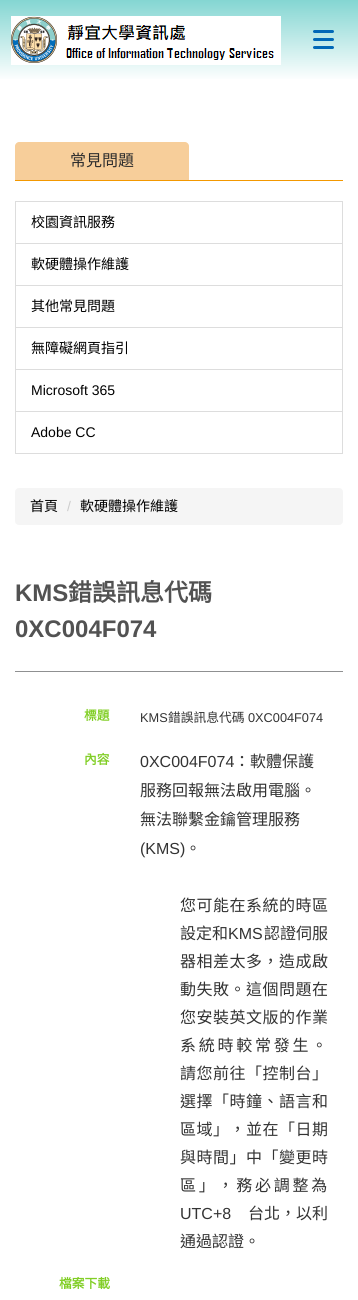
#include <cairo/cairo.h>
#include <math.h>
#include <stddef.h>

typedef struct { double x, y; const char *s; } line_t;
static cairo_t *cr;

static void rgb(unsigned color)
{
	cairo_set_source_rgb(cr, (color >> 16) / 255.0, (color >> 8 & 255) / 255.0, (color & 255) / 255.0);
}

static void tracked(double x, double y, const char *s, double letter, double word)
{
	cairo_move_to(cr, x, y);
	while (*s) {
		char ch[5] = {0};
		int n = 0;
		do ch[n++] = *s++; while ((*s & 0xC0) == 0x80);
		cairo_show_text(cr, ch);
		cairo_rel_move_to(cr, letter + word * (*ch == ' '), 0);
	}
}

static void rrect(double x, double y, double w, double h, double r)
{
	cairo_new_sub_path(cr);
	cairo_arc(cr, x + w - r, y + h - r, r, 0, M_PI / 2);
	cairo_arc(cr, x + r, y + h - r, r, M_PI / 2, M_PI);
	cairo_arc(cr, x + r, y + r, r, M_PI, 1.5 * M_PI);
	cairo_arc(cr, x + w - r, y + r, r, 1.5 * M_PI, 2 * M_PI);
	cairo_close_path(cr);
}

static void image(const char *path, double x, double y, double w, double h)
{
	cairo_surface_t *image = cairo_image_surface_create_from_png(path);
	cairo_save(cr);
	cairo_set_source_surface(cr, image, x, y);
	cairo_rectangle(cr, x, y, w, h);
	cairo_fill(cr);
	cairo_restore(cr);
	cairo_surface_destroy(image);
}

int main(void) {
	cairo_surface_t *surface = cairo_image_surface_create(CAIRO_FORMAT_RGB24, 358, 1300);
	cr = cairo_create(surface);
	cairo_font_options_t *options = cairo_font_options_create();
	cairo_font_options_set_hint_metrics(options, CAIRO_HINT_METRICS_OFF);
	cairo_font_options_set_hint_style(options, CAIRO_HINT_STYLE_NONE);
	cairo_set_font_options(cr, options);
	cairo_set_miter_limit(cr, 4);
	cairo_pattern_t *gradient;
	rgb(0xffffff);
	cairo_paint(cr);
	gradient = cairo_pattern_create_linear(179, 0, 179, 81);
	cairo_pattern_add_color_stop_rgba(gradient, 0, 0.518, 0.839, 0.824, 1);
	cairo_pattern_add_color_stop_rgba(gradient, 1, 1, 1, 1, 1);
	cairo_set_source(cr, gradient);
	cairo_pattern_destroy(gradient);
	cairo_rectangle(cr, 0, 0, 358, 79);
	cairo_fill(cr);
	image("img/1.png", 11, 16, 270, 49);
	image("img/2.png", 313, 30, 21, 19);
	rgb(0xf39800);
	cairo_rectangle(cr, 15, 180, 328, 1);
	cairo_fill(cr);
	rgb(0xf7ce9a);
	cairo_new_path(cr);
	cairo_move_to(cr, 19, 142);
	cairo_line_to(cr, 185, 142);
	cairo_curve_to(cr, 187, 142, 189, 144, 189, 146);
	cairo_line_to(cr, 189, 180);
	cairo_line_to(cr, 15, 180);
	cairo_line_to(cr, 15, 146);
	cairo_curve_to(cr, 15, 144, 17, 142, 19, 142);
	cairo_close_path(cr);
	cairo_fill(cr);
	cairo_rectangle(cr, 15.5, 201.5, 327, 42);
	rgb(0xdddddd);
	cairo_set_line_width(cr, 1);
	cairo_stroke(cr);
	cairo_rectangle(cr, 15.5, 243.5, 327, 42);
	cairo_stroke(cr);
	cairo_rectangle(cr, 15.5, 285.5, 327, 42);
	cairo_stroke(cr);
	cairo_rectangle(cr, 15.5, 327.5, 327, 42);
	cairo_stroke(cr);
	cairo_rectangle(cr, 15.5, 369.5, 327, 42);
	cairo_stroke(cr);
	cairo_rectangle(cr, 15.5, 411.5, 327, 42);
	cairo_stroke(cr);
	rgb(0xf5f5f5);
	rrect(15, 488, 328, 37, 4);
	cairo_fill(cr);
	rgb(0x8f9091);
	cairo_rectangle(cr, 15, 671, 328, 1);
	cairo_fill(cr);
	cairo_select_font_face(cr, "Noto Sans CJK TC", CAIRO_FONT_SLANT_NORMAL, CAIRO_FONT_WEIGHT_NORMAL);
	cairo_set_font_size(cr, 16);
	rgb(0x2d2d2d);
	cairo_move_to(cr, 70, 166);
	cairo_show_text(cr, "常見問題");
	cairo_set_font_size(cr, 14);
	rgb(0x000000);
	{
		static const line_t items[] = {
			{31, 227, "校園資訊服務"},
			{31, 269, "軟硬體操作維護"},
			{31, 311, "其他常見問題"},
			{31, 353, "無障礙網頁指引"},
		};
		for (size_t i = 0; i < sizeof items / sizeof *items; i++) {
			cairo_move_to(cr, items[i].x, items[i].y);
			cairo_show_text(cr, items[i].s);
		}
	}
	cairo_select_font_face(cr, "Liberation Sans", CAIRO_FONT_SLANT_NORMAL, CAIRO_FONT_WEIGHT_NORMAL);
	cairo_move_to(cr, 31, 395);
	cairo_show_text(cr, "Microsoft 365");
	cairo_move_to(cr, 31, 437);
	cairo_show_text(cr, "Adobe CC");
	cairo_select_font_face(cr, "Noto Sans CJK TC", CAIRO_FONT_SLANT_NORMAL, CAIRO_FONT_WEIGHT_NORMAL);
	cairo_move_to(cr, 30, 511);
	cairo_show_text(cr, "首頁");
	cairo_select_font_face(cr, "Liberation Sans", CAIRO_FONT_SLANT_NORMAL, CAIRO_FONT_WEIGHT_NORMAL);
	rgb(0xcccccc);
	cairo_move_to(cr, 67, 511);
	cairo_show_text(cr, "/");
	cairo_select_font_face(cr, "Noto Sans CJK TC", CAIRO_FONT_SLANT_NORMAL, CAIRO_FONT_WEIGHT_NORMAL);
	rgb(0x000000);
	cairo_move_to(cr, 80, 511);
	cairo_show_text(cr, "軟硬體操作維護");
	cairo_select_font_face(cr, "Liberation Sans", CAIRO_FONT_SLANT_NORMAL, CAIRO_FONT_WEIGHT_BOLD);
	cairo_set_font_size(cr, 24);
	rgb(0x525252);
	cairo_move_to(cr, 15, 601);
	cairo_show_text(cr, "KMS");
	cairo_select_font_face(cr, "Noto Sans CJK TC", CAIRO_FONT_SLANT_NORMAL, CAIRO_FONT_WEIGHT_BOLD);
	cairo_move_to(cr, 68, 601);
	cairo_show_text(cr, "錯誤訊息代碼");
	cairo_select_font_face(cr, "Liberation Sans", CAIRO_FONT_SLANT_NORMAL, CAIRO_FONT_WEIGHT_BOLD);
	cairo_move_to(cr, 15, 637);
	cairo_show_text(cr, "0XC004F074");
	cairo_select_font_face(cr, "Noto Sans CJK TC", CAIRO_FONT_SLANT_NORMAL, CAIRO_FONT_WEIGHT_BOLD);
	cairo_set_font_size(cr, 12.75);
	rgb(0x81ce25);
	cairo_move_to(cr, 84, 720);
	cairo_show_text(cr, "標題");
	cairo_select_font_face(cr, "Liberation Sans", CAIRO_FONT_SLANT_NORMAL, CAIRO_FONT_WEIGHT_NORMAL);
	rgb(0x333333);
	cairo_move_to(cr, 140, 722);
	cairo_show_text(cr, "KMS");
	cairo_select_font_face(cr, "Noto Sans CJK TC", CAIRO_FONT_SLANT_NORMAL, CAIRO_FONT_WEIGHT_NORMAL);
	cairo_move_to(cr, 168, 722);
	cairo_show_text(cr, "錯誤訊息代碼");
	cairo_select_font_face(cr, "Liberation Sans", CAIRO_FONT_SLANT_NORMAL, CAIRO_FONT_WEIGHT_NORMAL);
	cairo_move_to(cr, 248, 722);
	cairo_show_text(cr, "0XC004F074");
	cairo_select_font_face(cr, "Noto Sans CJK TC", CAIRO_FONT_SLANT_NORMAL, CAIRO_FONT_WEIGHT_BOLD);
	rgb(0x81ce25);
	cairo_move_to(cr, 84, 764);
	cairo_show_text(cr, "內容");
	cairo_select_font_face(cr, "Liberation Sans", CAIRO_FONT_SLANT_NORMAL, CAIRO_FONT_WEIGHT_NORMAL);
	cairo_set_font_size(cr, 16);
	rgb(0x333333);
	cairo_move_to(cr, 140, 767);
	cairo_show_text(cr, "0XC004F074");
	cairo_select_font_face(cr, "Noto Sans CJK TC", CAIRO_FONT_SLANT_NORMAL, CAIRO_FONT_WEIGHT_NORMAL);
	{
		static const line_t items[] = {
			{234, 767, "：軟體保護"},
			{140, 796, "服務回報無法啟用電腦。"},
			{140, 825, "無法聯繫金鑰管理服務"},
		};
		for (size_t i = 0; i < sizeof items / sizeof *items; i++) {
			cairo_move_to(cr, items[i].x, items[i].y);
			cairo_show_text(cr, items[i].s);
		}
	}
	cairo_select_font_face(cr, "Liberation Sans", CAIRO_FONT_SLANT_NORMAL, CAIRO_FONT_WEIGHT_NORMAL);
	cairo_move_to(cr, 140, 854);
	cairo_show_text(cr, "(KMS)");
	cairo_select_font_face(cr, "Noto Sans CJK TC", CAIRO_FONT_SLANT_NORMAL, CAIRO_FONT_WEIGHT_NORMAL);
	cairo_move_to(cr, 185, 854);
	cairo_show_text(cr, "。");
	tracked(180, 911, "您可能在系統的時區", 0.5, 0);
	cairo_move_to(cr, 180, 939);
	cairo_show_text(cr, "設定和");
	cairo_select_font_face(cr, "Liberation Sans", CAIRO_FONT_SLANT_NORMAL, CAIRO_FONT_WEIGHT_NORMAL);
	cairo_move_to(cr, 228, 939);
	cairo_show_text(cr, "KMS");
	cairo_select_font_face(cr, "Noto Sans CJK TC", CAIRO_FONT_SLANT_NORMAL, CAIRO_FONT_WEIGHT_NORMAL);
	cairo_move_to(cr, 264, 939);
	cairo_show_text(cr, "認證伺服");
	{
		static const line_t items[] = {
			{180, 967, "器相差太多，造成啟"},
			{180, 995, "動失敗。這個問題在"},
			{180, 1023, "您安裝英文版的作業"},
		};
		for (size_t i = 0; i < sizeof items / sizeof *items; i++) {
			tracked(items[i].x, items[i].y, items[i].s, 0.5, 0);
		}
	}
	tracked(180, 1051, "系統時較常發生。", 2.75, 0);
	{
		static const line_t items[] = {
			{180, 1079, "請您前往「控制台」"},
			{180, 1107, "選擇「時鐘、語言和"},
			{180, 1135, "區域」，並在「日期"},
			{180, 1163, "與時間」中「變更時"},
		};
		for (size_t i = 0; i < sizeof items / sizeof *items; i++) {
			tracked(items[i].x, items[i].y, items[i].s, 0.5, 0);
		}
	}
	tracked(180, 1191, "區」，務必調整為", 2.75, 0);
	cairo_select_font_face(cr, "Liberation Sans", CAIRO_FONT_SLANT_NORMAL, CAIRO_FONT_WEIGHT_NORMAL);
	cairo_move_to(cr, 180, 1219);
	cairo_show_text(cr, "UTC+8");
	cairo_select_font_face(cr, "Noto Sans CJK TC", CAIRO_FONT_SLANT_NORMAL, CAIRO_FONT_WEIGHT_NORMAL);
	cairo_move_to(cr, 248, 1219);
	cairo_show_text(cr, "台北，以利");
	cairo_move_to(cr, 180, 1247);
	cairo_show_text(cr, "通過認證。");
	cairo_select_font_face(cr, "Noto Sans CJK TC", CAIRO_FONT_SLANT_NORMAL, CAIRO_FONT_WEIGHT_BOLD);
	cairo_set_font_size(cr, 12.75);
	rgb(0x81ce25);
	cairo_move_to(cr, 59, 1288);
	cairo_show_text(cr, "檔案下載");
	cairo_surface_write_to_png(surface, "page.png");
	cairo_font_options_destroy(options);
	cairo_destroy(cr);
	cairo_surface_destroy(surface);
	return 0;
}
